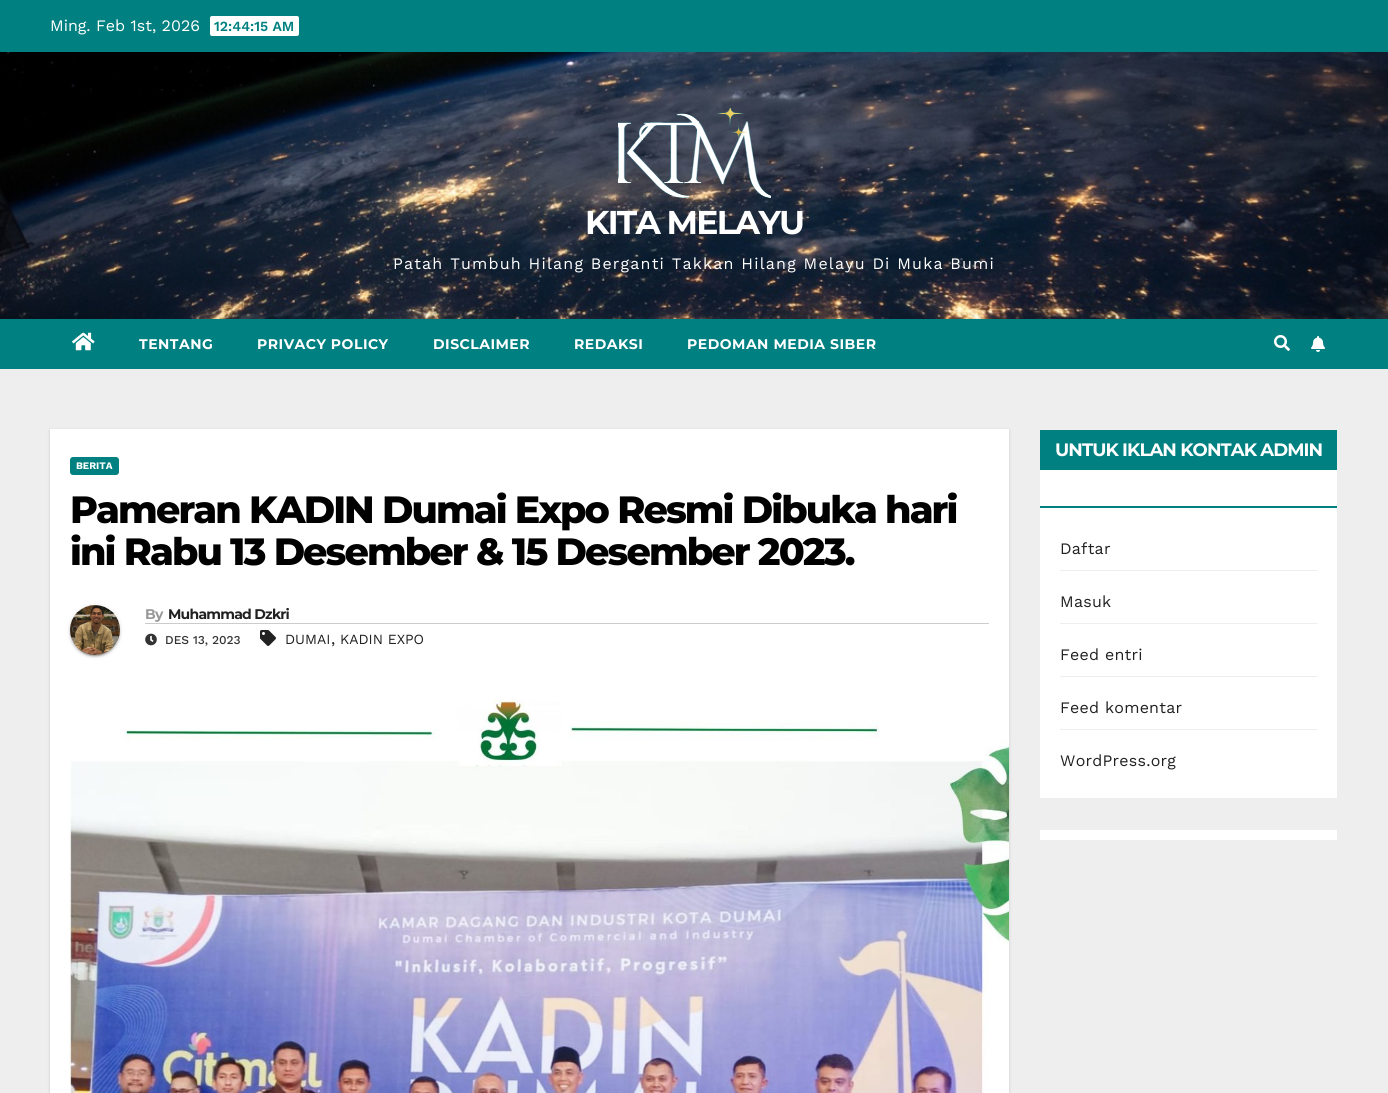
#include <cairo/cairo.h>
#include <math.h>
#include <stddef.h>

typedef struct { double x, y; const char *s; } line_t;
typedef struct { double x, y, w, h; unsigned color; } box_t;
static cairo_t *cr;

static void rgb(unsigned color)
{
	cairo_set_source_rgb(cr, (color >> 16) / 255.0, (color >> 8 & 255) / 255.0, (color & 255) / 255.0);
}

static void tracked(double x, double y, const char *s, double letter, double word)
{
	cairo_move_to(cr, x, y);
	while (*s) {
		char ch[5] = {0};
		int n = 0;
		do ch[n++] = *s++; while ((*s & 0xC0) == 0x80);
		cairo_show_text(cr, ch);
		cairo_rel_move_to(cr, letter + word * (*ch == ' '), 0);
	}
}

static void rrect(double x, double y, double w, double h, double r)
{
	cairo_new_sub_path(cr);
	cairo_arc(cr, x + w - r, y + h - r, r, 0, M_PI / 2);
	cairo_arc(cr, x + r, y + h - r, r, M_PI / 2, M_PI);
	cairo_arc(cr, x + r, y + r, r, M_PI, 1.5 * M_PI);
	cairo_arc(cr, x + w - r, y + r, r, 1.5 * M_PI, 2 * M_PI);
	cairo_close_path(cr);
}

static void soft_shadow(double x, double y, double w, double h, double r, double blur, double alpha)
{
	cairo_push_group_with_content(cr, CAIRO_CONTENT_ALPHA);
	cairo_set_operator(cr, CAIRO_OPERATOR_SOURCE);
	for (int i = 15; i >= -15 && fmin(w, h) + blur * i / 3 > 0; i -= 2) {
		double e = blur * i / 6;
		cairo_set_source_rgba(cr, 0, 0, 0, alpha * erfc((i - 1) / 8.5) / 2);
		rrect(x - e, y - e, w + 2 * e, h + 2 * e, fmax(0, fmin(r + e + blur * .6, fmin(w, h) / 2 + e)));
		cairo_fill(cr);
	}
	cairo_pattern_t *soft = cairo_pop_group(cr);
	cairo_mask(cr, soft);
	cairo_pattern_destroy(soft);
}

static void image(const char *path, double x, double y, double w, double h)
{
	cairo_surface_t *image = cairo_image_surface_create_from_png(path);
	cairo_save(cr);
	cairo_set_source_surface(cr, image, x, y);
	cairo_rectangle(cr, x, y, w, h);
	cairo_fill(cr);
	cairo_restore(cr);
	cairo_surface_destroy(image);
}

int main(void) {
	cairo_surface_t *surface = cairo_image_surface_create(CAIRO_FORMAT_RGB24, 1388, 1093);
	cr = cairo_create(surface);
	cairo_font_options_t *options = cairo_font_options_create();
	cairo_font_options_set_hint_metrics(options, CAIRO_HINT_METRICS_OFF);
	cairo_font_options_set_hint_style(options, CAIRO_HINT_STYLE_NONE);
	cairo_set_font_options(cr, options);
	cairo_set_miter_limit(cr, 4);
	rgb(0xeeeeee);
	cairo_paint(cr);
	rgb(0x008080);
	cairo_rectangle(cr, 0, 0, 1388, 52);
	cairo_fill(cr);
	rgb(0xffffff);
	rrect(210, 16, 89, 20, 2);
	cairo_fill(cr);
	image("img/1.png", 0, 52, 1388, 267);
	image("img/2.png", 618, 108, 153, 90);
	rgb(0x008080);
	cairo_rectangle(cr, 0, 319, 1388, 50);
	cairo_fill(cr);
	image("img/3.png", 72, 332, 23, 19);
	image("img/4.png", 1274, 335, 16, 16);
	image("img/5.png", 1311, 336, 14, 16);
	rgb(0x000000);
	soft_shadow(50, 430, 959, 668, 0, 1.5, 0.15);
	rgb(0xffffff);
	cairo_rectangle(cr, 50, 429, 959, 664);
	cairo_fill(cr);
	rgb(0x008080);
	rrect(70, 457, 49, 18, 3);
	cairo_fill(cr);
	rgb(0x000000);
	soft_shadow(70, 606, 50, 50, 25, 2.5, 0.12);
	soft_shadow(72, 610, 46, 46, 23, 0.5, 0.2);
	soft_shadow(70, 607, 50, 50, 25, 1, 0.14);
	image("img/6.png", 70, 605, 50, 50);
	rgb(0xcccccc);
	cairo_rectangle(cr, 145, 623, 844, 1);
	cairo_fill(cr);
	image("img/7.png", 145, 633, 12, 13);
	image("img/8.png", 260, 630, 16, 16);
	image("img/9.png", 69, 700, 940, 393);
	{
		static const box_t items[] = {
			{1040, 470, 297, 328, 0xffffff},
			{1040, 506, 297, 2, 0x008080},
			{1040, 430, 297, 40, 0x008080},
			{1060, 570, 257, 1, 0xeeeeee},
			{1060, 623, 257, 1, 0xeeeeee},
			{1060, 676, 257, 1, 0xeeeeee},
			{1060, 729, 257, 1, 0xeeeeee},
			{1040, 830, 297, 10, 0xffffff},
		};
		for (size_t i = 0; i < sizeof items / sizeof *items; i++) {
			rgb(items[i].color);
			cairo_rectangle(cr, items[i].x, items[i].y, items[i].w, items[i].h);
			cairo_fill(cr);
		}
	}
	cairo_select_font_face(cr, "Work Sans", CAIRO_FONT_SLANT_NORMAL, CAIRO_FONT_WEIGHT_NORMAL);
	cairo_set_font_size(cr, 16);
	cairo_move_to(cr, 50, 31);
	cairo_show_text(cr, "Ming. Feb 1st, 2026");
	cairo_select_font_face(cr, "Work Sans SemiBold", CAIRO_FONT_SLANT_NORMAL, CAIRO_FONT_WEIGHT_NORMAL);
	cairo_set_font_size(cr, 14);
	rgb(0x008080);
	cairo_move_to(cr, 214, 31);
	cairo_show_text(cr, "12:44:15 AM");
	cairo_select_font_face(cr, "Montserrat", CAIRO_FONT_SLANT_NORMAL, CAIRO_FONT_WEIGHT_BOLD);
	cairo_set_font_size(cr, 33);
	rgb(0xffffff);
	tracked(585, 234, "KITA MELAYU", -1.75, 0);
	cairo_select_font_face(cr, "Work Sans", CAIRO_FONT_SLANT_NORMAL, CAIRO_FONT_WEIGHT_NORMAL);
	cairo_set_font_size(cr, 16);
	tracked(393, 269, "Patah Tumbuh Hilang Berganti Takkan Hilang Melayu Di Muka Bumi", 1.2, 0);
	cairo_select_font_face(cr, "Montserrat", CAIRO_FONT_SLANT_NORMAL, CAIRO_FONT_WEIGHT_BOLD);
	cairo_set_font_size(cr, 14);
	{
		static const line_t items[] = {
			{139, 349, "TENTANG"},
			{257, 349, "PRIVACY POLICY"},
			{433, 349, "DISCLAIMER"},
			{574, 349, "REDAKSI"},
			{687, 349, "PEDOMAN MEDIA SIBER"},
		};
		for (size_t i = 0; i < sizeof items / sizeof *items; i++) {
			tracked(items[i].x, items[i].y, items[i].s, 0.5, 0);
		}
	}
	cairo_select_font_face(cr, "Work Sans", CAIRO_FONT_SLANT_NORMAL, CAIRO_FONT_WEIGHT_BOLD);
	cairo_set_font_size(cr, 10);
	cairo_move_to(cr, 76, 469);
	cairo_show_text(cr, "BERITA");
	cairo_select_font_face(cr, "Montserrat ExtraBold", CAIRO_FONT_SLANT_NORMAL, CAIRO_FONT_WEIGHT_NORMAL);
	cairo_set_font_size(cr, 38);
	rgb(0x000000);
	tracked(70, 523, "Pameran KADIN Dumai Expo Resmi Dibuka hari", -1.9, 0);
	tracked(70, 565, "ini Rabu 13 Desember & 15 Desember 2023.", -1.9, 0);
	cairo_select_font_face(cr, "Montserrat", CAIRO_FONT_SLANT_NORMAL, CAIRO_FONT_WEIGHT_BOLD);
	cairo_set_font_size(cr, 14);
	rgb(0x999999);
	tracked(145, 619, "By", -0.75, 0);
	rgb(0x212121);
	tracked(168, 619, "Muhammad Dzkri", -0.75, 0);
	cairo_select_font_face(cr, "Work Sans Medium", CAIRO_FONT_SLANT_NORMAL, CAIRO_FONT_WEIGHT_NORMAL);
	cairo_set_font_size(cr, 12);
	rgb(0x333333);
	cairo_move_to(cr, 165, 644);
	cairo_show_text(cr, "DES 13, 2023");
	cairo_select_font_face(cr, "Work Sans", CAIRO_FONT_SLANT_NORMAL, CAIRO_FONT_WEIGHT_NORMAL);
	cairo_set_font_size(cr, 14);
	rgb(0x212121);
	cairo_move_to(cr, 285, 644);
	cairo_show_text(cr, "DUMAI");
	cairo_set_font_size(cr, 16);
	cairo_move_to(cr, 331, 644);
	cairo_show_text(cr, ",");
	cairo_set_font_size(cr, 14);
	cairo_move_to(cr, 340, 644);
	cairo_show_text(cr, "KADIN EXPO");
	cairo_select_font_face(cr, "Montserrat", CAIRO_FONT_SLANT_NORMAL, CAIRO_FONT_WEIGHT_BOLD);
	cairo_set_font_size(cr, 18);
	rgb(0xffffff);
	tracked(1055, 456, "UNTUK IKLAN KONTAK ADMIN", -0.9, 0);
	cairo_select_font_face(cr, "Work Sans", CAIRO_FONT_SLANT_NORMAL, CAIRO_FONT_WEIGHT_NORMAL);
	cairo_set_font_size(cr, 16);
	rgb(0x212121);
	{
		static const line_t items[] = {
			{1060, 554, "Daftar"},
			{1060, 607, "Masuk"},
			{1060, 660, "Feed entri"},
			{1060, 713, "Feed komentar"},
			{1060, 766, "WordPress.org"},
		};
		for (size_t i = 0; i < sizeof items / sizeof *items; i++) {
			tracked(items[i].x, items[i].y, items[i].s, 0.25, 0);
		}
	}
	cairo_surface_write_to_png(surface, "page.png");
	cairo_font_options_destroy(options);
	cairo_destroy(cr);
	cairo_surface_destroy(surface);
	return 0;
}
